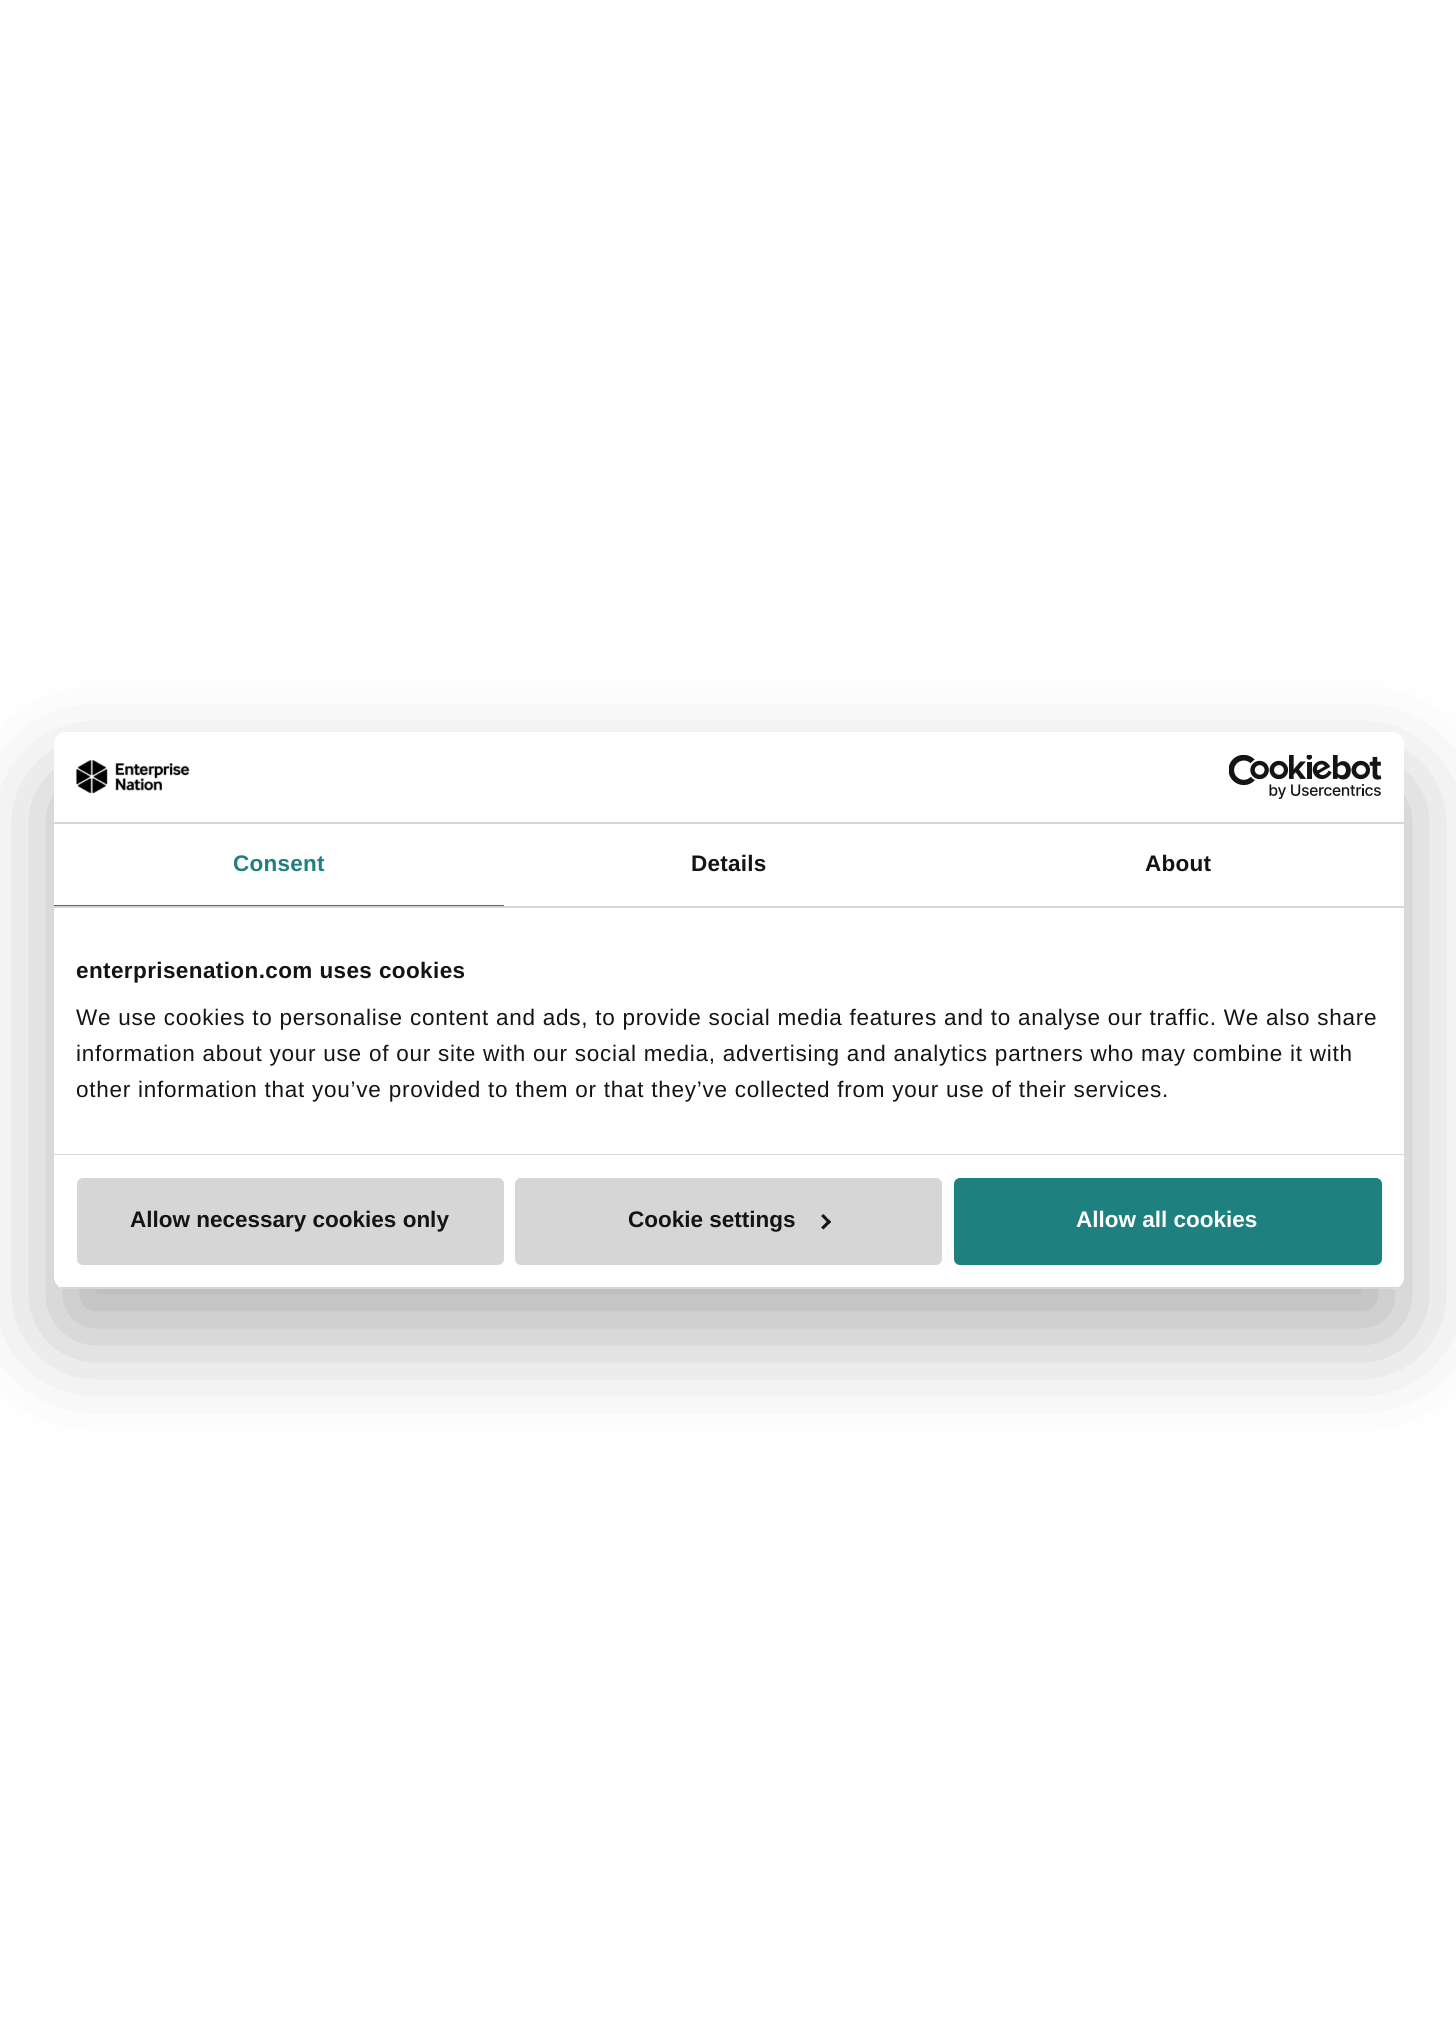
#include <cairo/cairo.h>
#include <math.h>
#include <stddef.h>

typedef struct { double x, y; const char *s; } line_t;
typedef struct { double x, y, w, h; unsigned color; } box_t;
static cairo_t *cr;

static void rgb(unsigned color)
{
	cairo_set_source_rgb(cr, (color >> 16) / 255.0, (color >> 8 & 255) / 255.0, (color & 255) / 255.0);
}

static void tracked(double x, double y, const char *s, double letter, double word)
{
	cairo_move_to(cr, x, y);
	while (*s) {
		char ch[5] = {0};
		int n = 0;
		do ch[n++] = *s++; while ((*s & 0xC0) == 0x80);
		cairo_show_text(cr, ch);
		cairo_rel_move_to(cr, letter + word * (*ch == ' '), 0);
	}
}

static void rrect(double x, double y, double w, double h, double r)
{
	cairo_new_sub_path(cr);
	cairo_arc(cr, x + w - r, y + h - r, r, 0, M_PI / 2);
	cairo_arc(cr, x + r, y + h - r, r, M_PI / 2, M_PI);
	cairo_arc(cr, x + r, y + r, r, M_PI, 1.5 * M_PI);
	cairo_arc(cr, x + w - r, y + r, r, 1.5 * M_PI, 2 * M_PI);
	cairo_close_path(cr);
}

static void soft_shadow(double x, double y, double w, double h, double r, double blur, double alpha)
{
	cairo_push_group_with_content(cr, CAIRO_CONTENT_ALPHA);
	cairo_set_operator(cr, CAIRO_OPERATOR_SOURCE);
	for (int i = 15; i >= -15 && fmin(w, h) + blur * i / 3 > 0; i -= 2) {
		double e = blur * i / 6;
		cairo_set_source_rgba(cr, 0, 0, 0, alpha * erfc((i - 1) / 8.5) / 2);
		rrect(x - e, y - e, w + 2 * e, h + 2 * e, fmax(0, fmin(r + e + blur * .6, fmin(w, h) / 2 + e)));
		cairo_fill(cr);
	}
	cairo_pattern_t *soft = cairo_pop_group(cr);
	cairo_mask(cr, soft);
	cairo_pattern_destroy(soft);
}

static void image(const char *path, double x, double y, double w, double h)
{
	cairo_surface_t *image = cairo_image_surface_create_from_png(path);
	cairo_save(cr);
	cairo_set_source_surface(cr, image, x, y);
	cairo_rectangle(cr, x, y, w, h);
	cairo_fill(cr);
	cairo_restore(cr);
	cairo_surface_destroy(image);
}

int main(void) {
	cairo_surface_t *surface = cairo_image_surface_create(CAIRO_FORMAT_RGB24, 1456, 2018);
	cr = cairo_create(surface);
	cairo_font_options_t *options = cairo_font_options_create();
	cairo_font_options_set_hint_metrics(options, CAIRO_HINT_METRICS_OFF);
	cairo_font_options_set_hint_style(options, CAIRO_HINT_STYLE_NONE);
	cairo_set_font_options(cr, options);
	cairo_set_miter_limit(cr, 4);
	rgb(0xffffff);
	cairo_paint(cr);
	rgb(0x000000);
	soft_shadow(54, 780, 1350, 557, 12, 51, 0.3);
	rgb(0xffffff);
	rrect(54, 732, 1350, 557, 12);
	cairo_fill(cr);
	rgb(0xd6d6d6);
	cairo_rectangle(cr, 54, 822, 1350, 2);
	cairo_fill(cr);
	image("img/1.png", 76, 760, 114, 34);
	image("img/2.png", 1229, 755, 153, 44);
	{
		static const box_t items[] = {
			{54, 906, 1350, 2, 0xd6d6d6},
			{54, 905, 450, 1, 0x1e8180},
			{54, 1154, 1350, 1, 0xd6d6d6},
		};
		for (size_t i = 0; i < sizeof items / sizeof *items; i++) {
			rgb(items[i].color);
			cairo_rectangle(cr, items[i].x, items[i].y, items[i].w, items[i].h);
			cairo_fill(cr);
		}
	}
	cairo_save(cr);
	rrect(54, 732, 1350, 557, 12);
	cairo_clip(cr);
	cairo_rectangle(cr, 54, 1287, 1350, 2);
	cairo_fill(cr);
	cairo_restore(cr);
	rrect(78.5, 1179.5, 424, 84, 4.5);
	cairo_fill_preserve(cr);
	cairo_set_line_width(cr, 3);
	cairo_stroke(cr);
	rrect(516.5, 1179.5, 424, 84, 4.5);
	cairo_fill_preserve(cr);
	cairo_stroke(cr);
	rgb(0x141414);
	cairo_new_path(cr);
	cairo_move_to(cr, 823.5, 1214);
	cairo_line_to(cr, 831, 1222);
	cairo_line_to(cr, 829, 1224);
	cairo_line_to(cr, 821, 1216);
	cairo_close_path(cr);
	cairo_fill(cr);
	cairo_new_path(cr);
	cairo_move_to(cr, 829, 1219.5);
	cairo_line_to(cr, 831, 1222);
	cairo_line_to(cr, 823.5, 1229.5);
	cairo_line_to(cr, 821, 1227.5);
	cairo_close_path(cr);
	cairo_fill(cr);
	rgb(0x1e8180);
	rrect(955.5, 1179.5, 425, 84, 4.5);
	cairo_fill_preserve(cr);
	cairo_stroke(cr);
	cairo_select_font_face(cr, "Liberation Sans", CAIRO_FONT_SLANT_NORMAL, CAIRO_FONT_WEIGHT_BOLD);
	cairo_set_font_size(cr, 22.5);
	tracked(233, 871, "Consent", 0.25, 0);
	rgb(0x141414);
	tracked(691, 871, "Details", 0.25, 0);
	tracked(1145, 871, "About", 0.25, 0);
	tracked(76, 978, "enterprisenation.com uses cookies", 0.4, 0);
	cairo_select_font_face(cr, "Liberation Sans", CAIRO_FONT_SLANT_NORMAL, CAIRO_FONT_WEIGHT_NORMAL);
	{
		static const line_t items[] = {
			{76, 1025, "We use cookies to personalise content and ads, to provide social media features and to analyse our traffic. We also share"},
			{76, 1061, "information about your use of our site with our social media, advertising and analytics partners who may combine it with"},
			{76, 1097, "other information that you’ve provided to them or that they’ve collected from your use of their services."},
		};
		for (size_t i = 0; i < sizeof items / sizeof *items; i++) {
			tracked(items[i].x, items[i].y, items[i].s, 0.75, 0);
		}
	}
	cairo_select_font_face(cr, "Liberation Sans", CAIRO_FONT_SLANT_NORMAL, CAIRO_FONT_WEIGHT_BOLD);
	cairo_move_to(cr, 130, 1227);
	cairo_show_text(cr, "Allow necessary cookies only");
	cairo_move_to(cr, 628, 1227);
	cairo_show_text(cr, "Cookie settings");
	rgb(0xffffff);
	cairo_move_to(cr, 1076, 1227);
	cairo_show_text(cr, "Allow all cookies");
	cairo_surface_write_to_png(surface, "page.png");
	cairo_font_options_destroy(options);
	cairo_destroy(cr);
	cairo_surface_destroy(surface);
	return 0;
}
